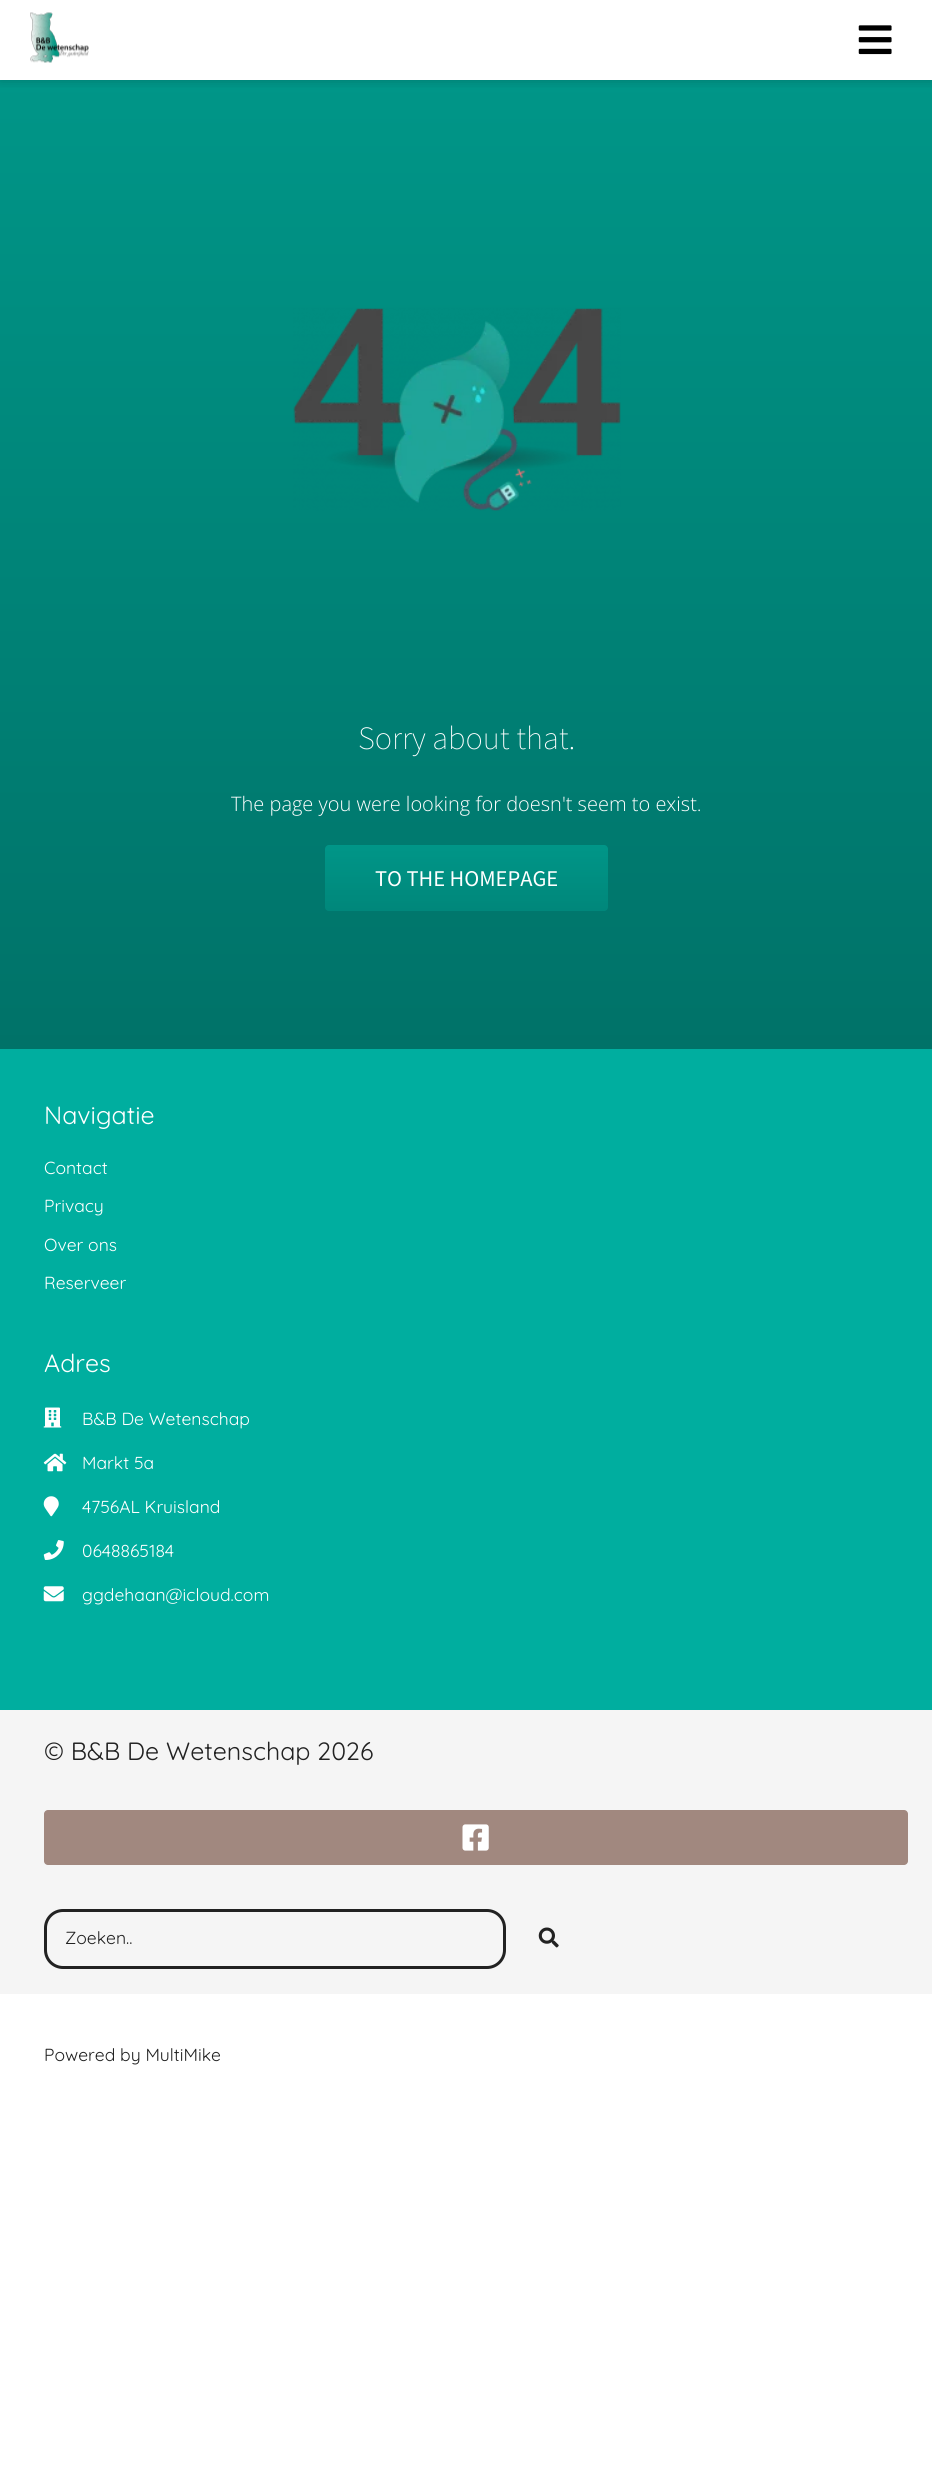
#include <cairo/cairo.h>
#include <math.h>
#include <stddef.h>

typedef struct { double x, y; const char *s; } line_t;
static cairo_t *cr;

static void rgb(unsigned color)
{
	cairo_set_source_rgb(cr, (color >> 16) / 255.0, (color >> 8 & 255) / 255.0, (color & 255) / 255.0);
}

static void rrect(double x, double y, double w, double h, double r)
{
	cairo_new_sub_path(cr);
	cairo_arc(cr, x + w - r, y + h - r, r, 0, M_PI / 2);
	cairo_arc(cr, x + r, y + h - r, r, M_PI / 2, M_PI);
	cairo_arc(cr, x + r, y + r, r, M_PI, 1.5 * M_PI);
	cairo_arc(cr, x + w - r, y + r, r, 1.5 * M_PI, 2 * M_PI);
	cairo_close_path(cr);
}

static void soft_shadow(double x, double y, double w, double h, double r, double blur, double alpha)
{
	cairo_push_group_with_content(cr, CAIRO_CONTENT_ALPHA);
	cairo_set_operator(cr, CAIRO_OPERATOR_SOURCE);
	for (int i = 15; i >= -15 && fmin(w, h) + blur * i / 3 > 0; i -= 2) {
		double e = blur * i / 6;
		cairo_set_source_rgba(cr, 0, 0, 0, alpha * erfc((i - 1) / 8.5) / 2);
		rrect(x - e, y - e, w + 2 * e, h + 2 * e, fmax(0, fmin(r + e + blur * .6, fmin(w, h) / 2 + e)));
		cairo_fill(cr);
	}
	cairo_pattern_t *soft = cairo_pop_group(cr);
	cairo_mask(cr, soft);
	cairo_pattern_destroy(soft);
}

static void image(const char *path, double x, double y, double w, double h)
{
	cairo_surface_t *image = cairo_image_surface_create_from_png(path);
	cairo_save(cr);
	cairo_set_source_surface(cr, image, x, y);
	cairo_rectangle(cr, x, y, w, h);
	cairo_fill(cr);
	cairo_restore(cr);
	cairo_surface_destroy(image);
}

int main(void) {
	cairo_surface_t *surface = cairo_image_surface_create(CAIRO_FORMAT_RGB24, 932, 2492);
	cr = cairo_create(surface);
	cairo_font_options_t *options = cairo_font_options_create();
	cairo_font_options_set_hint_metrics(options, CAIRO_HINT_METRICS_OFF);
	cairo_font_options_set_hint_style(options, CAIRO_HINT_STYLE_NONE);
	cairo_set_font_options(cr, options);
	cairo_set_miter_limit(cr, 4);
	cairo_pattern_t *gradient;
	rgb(0xffffff);
	cairo_paint(cr);
	gradient = cairo_pattern_create_linear(466, 80, 466, 1049);
	cairo_pattern_add_color_stop_rgba(gradient, 0, 0, 0.588, 0.533, 1);
	cairo_pattern_add_color_stop_rgba(gradient, 1, 0, 0.447, 0.408, 1);
	cairo_set_source(cr, gradient);
	cairo_pattern_destroy(gradient);
	cairo_rectangle(cr, 0, 80, 932, 969);
	cairo_fill(cr);
	cairo_save(cr);
	cairo_rectangle(cr, 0, 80, 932, 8);
	cairo_clip(cr);
	rgb(0x000000);
	soft_shadow(0, 0, 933, 80, 0, 6, 0.2);
	cairo_restore(cr);
	image("img/1.png", 30, 12, 59, 51);
	image("img/2.png", 858, 25, 34, 30);
	image("img/3.png", 293, 308, 328, 203);
	rgb(0x009688);
	rrect(325, 845, 283, 66, 4);
	cairo_fill(cr);
	gradient = cairo_pattern_create_linear(466, 845, 466, 911);
	cairo_pattern_add_color_stop_rgba(gradient, 0, 0, 0, 0, 0);
	cairo_pattern_add_color_stop_rgba(gradient, 1, 0, 0, 0, 0.1);
	cairo_set_source(cr, gradient);
	cairo_pattern_destroy(gradient);
	rrect(325, 845, 283, 66, 4);
	cairo_fill(cr);
	rgb(0x00ae9f);
	cairo_rectangle(cr, 0, 1049, 932, 661);
	cairo_fill(cr);
	image("img/4.png", 43, 1407, 19, 21);
	image("img/5.png", 43, 1453, 24, 19);
	image("img/6.png", 43, 1496, 16, 21);
	image("img/7.png", 43, 1540, 21, 20);
	image("img/8.png", 43, 1586, 21, 16);
	rgb(0xf5f5f5);
	cairo_rectangle(cr, 0, 1710, 932, 284);
	cairo_fill(cr);
	rgb(0xa1887f);
	rrect(44, 1810, 864, 55, 4);
	cairo_fill(cr);
	image("img/9.png", 462, 1824, 27, 27);
	rrect(45.5, 1910.5, 459, 57, 17.5);
	rgb(0x222222);
	cairo_set_line_width(cr, 3);
	cairo_stroke(cr);
	image("img/10.png", 538, 1927, 21, 21);
	cairo_select_font_face(cr, "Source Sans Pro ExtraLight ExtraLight", CAIRO_FONT_SLANT_NORMAL, CAIRO_FONT_WEIGHT_NORMAL);
	cairo_set_font_size(cr, 32.5);
	rgb(0xffffff);
	cairo_move_to(cr, 358, 749);
	cairo_show_text(cr, "Sorry about that.");
	cairo_select_font_face(cr, "Open Sans Light", CAIRO_FONT_SLANT_NORMAL, CAIRO_FONT_WEIGHT_NORMAL);
	cairo_set_font_size(cr, 20);
	cairo_move_to(cr, 231, 811);
	cairo_show_text(cr, "The page you were looking for doesn't seem to exist.");
	cairo_select_font_face(cr, "Source Sans Pro", CAIRO_FONT_SLANT_NORMAL, CAIRO_FONT_WEIGHT_NORMAL);
	cairo_set_font_size(cr, 22.5);
	cairo_move_to(cr, 375, 886);
	cairo_show_text(cr, "TO THE HOMEPAGE");
	cairo_select_font_face(cr, "Quicksand", CAIRO_FONT_SLANT_NORMAL, CAIRO_FONT_WEIGHT_NORMAL);
	cairo_set_font_size(cr, 25);
	cairo_move_to(cr, 44, 1124);
	cairo_show_text(cr, "Navigatie");
	cairo_set_font_size(cr, 17.5);
	{
		static const line_t items[] = {
			{44, 1174, "Contact"},
			{44, 1212, "Privacy"},
			{44, 1251, "Over ons"},
			{44, 1289, "Reserveer"},
		};
		for (size_t i = 0; i < sizeof items / sizeof *items; i++) {
			cairo_move_to(cr, items[i].x, items[i].y);
			cairo_show_text(cr, items[i].s);
		}
	}
	cairo_set_font_size(cr, 25);
	cairo_move_to(cr, 44, 1372);
	cairo_show_text(cr, "Adres");
	cairo_set_font_size(cr, 17.5);
	{
		static const line_t items[] = {
			{82, 1425, "B&B De Wetenschap"},
			{82, 1469, "Markt 5a"},
			{82, 1513, "4756AL Kruisland"},
			{82, 1557, "0648865184"},
			{82, 1601, "ggdehaan@icloud.com"},
		};
		for (size_t i = 0; i < sizeof items / sizeof *items; i++) {
			cairo_move_to(cr, items[i].x, items[i].y);
			cairo_show_text(cr, items[i].s);
		}
	}
	cairo_set_font_size(cr, 25);
	rgb(0x222222);
	cairo_move_to(cr, 44, 1760);
	cairo_show_text(cr, "© B&B De Wetenschap 2026");
	cairo_set_font_size(cr, 17.5);
	cairo_move_to(cr, 65, 1944);
	cairo_show_text(cr, "Zoeken..");
	cairo_move_to(cr, 44, 2061);
	cairo_show_text(cr, "Powered by MultiMike");
	cairo_surface_write_to_png(surface, "page.png");
	cairo_font_options_destroy(options);
	cairo_destroy(cr);
	cairo_surface_destroy(surface);
	return 0;
}
